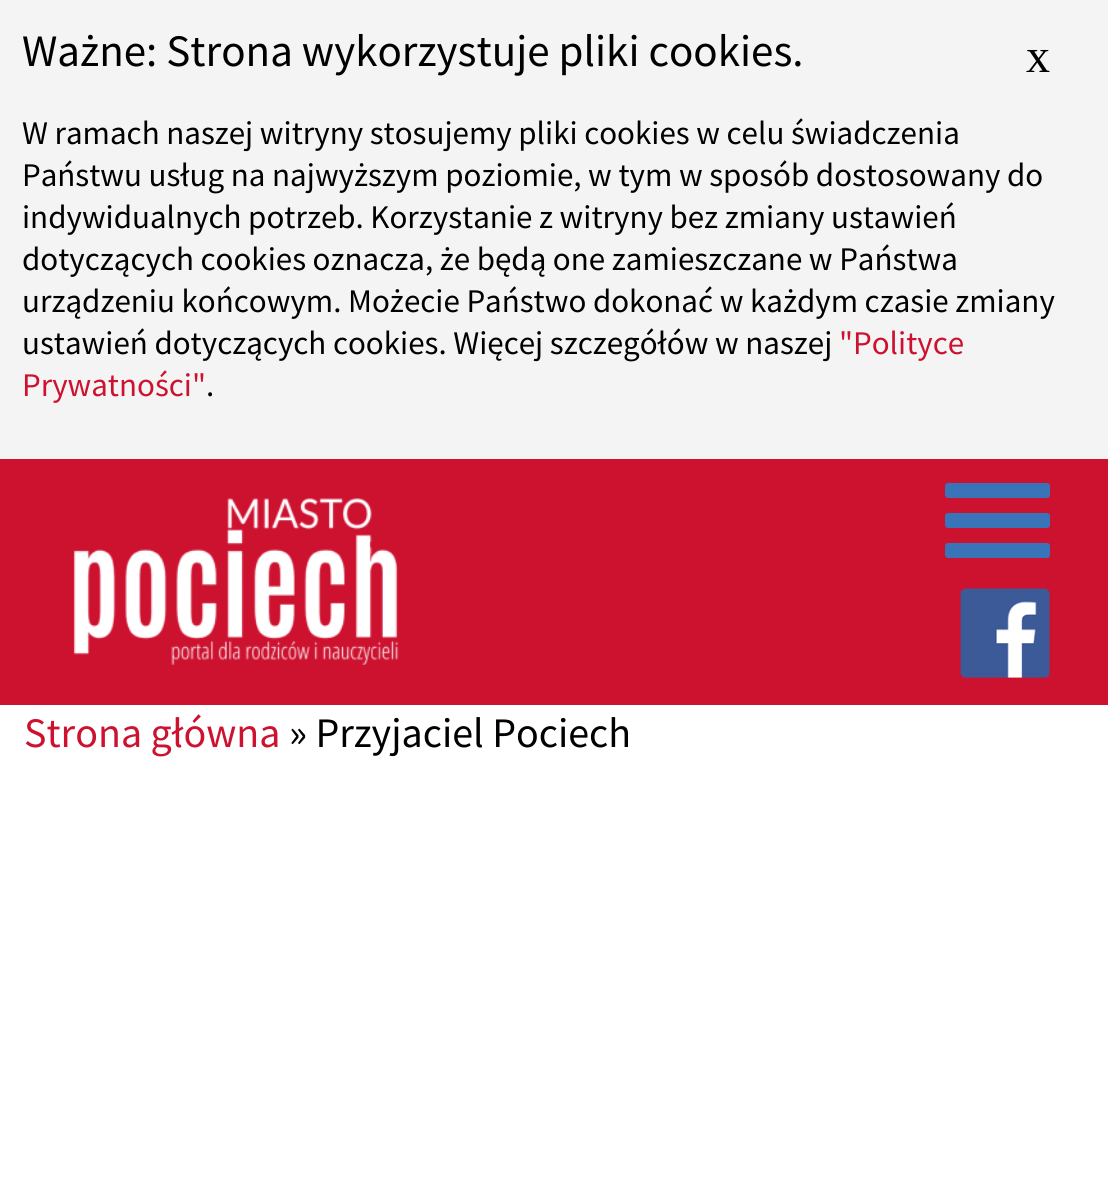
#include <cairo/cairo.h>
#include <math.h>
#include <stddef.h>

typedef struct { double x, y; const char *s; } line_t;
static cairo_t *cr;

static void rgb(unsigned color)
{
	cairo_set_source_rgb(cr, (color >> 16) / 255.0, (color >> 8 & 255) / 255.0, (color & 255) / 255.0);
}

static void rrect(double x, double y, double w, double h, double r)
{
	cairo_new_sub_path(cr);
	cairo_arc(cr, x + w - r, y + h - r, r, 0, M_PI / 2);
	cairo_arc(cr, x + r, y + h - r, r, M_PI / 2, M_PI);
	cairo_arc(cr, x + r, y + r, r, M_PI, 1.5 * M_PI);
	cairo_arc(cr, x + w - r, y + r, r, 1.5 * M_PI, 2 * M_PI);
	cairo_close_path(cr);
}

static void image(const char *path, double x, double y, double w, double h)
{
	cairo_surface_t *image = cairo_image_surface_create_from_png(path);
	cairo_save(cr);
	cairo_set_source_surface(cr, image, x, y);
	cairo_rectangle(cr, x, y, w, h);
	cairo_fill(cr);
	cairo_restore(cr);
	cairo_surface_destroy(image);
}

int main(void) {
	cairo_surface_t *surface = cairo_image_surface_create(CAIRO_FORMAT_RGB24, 1108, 1202);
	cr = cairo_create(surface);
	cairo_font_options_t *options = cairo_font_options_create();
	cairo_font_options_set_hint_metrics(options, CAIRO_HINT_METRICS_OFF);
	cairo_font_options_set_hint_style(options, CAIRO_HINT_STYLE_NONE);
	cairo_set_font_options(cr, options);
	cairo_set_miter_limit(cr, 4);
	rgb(0xffffff);
	cairo_paint(cr);
	rgb(0xf4f4f4);
	cairo_rectangle(cr, 0, 0, 1108, 459);
	cairo_fill(cr);
	rgb(0xcd1230);
	cairo_rectangle(cr, 0, 459, 1108, 246);
	cairo_fill(cr);
	image("img/1.png", 73, 498, 326, 167);
	rgb(0x3974b8);
	rrect(945, 513, 105, 15, 3);
	cairo_fill(cr);
	rrect(945, 483, 105, 15, 3);
	cairo_fill(cr);
	rrect(945, 543, 105, 15, 3);
	cairo_fill(cr);
	image("img/2.png", 960, 588, 90, 90);
	cairo_select_font_face(cr, "Source Sans Pro", CAIRO_FONT_SLANT_NORMAL, CAIRO_FONT_WEIGHT_NORMAL);
	cairo_set_font_size(cr, 45);
	rgb(0x000000);
	cairo_move_to(cr, 22, 66);
	cairo_show_text(cr, "Ważne: Strona wykorzystuje pliki cookies.");
	cairo_select_font_face(cr, "Liberation Serif", CAIRO_FONT_SLANT_NORMAL, CAIRO_FONT_WEIGHT_NORMAL);
	cairo_set_font_size(cr, 48);
	cairo_move_to(cr, 1026, 72);
	cairo_show_text(cr, "x");
	cairo_select_font_face(cr, "Source Sans Pro", CAIRO_FONT_SLANT_NORMAL, CAIRO_FONT_WEIGHT_NORMAL);
	cairo_set_font_size(cr, 33);
	{
		static const line_t items[] = {
			{22, 144, "W ramach naszej witryny stosujemy pliki cookies w celu świadczenia"},
			{22, 186, "Państwu usług na najwyższym poziomie, w tym w sposób dostosowany do"},
			{22, 228, "indywidualnych potrzeb. Korzystanie z witryny bez zmiany ustawień"},
			{22, 270, "dotyczących cookies oznacza, że będą one zamieszczane w Państwa"},
			{22, 312, "urządzeniu końcowym. Możecie Państwo dokonać w każdym czasie zmiany"},
			{22, 354, "ustawień dotyczących cookies. Więcej szczegółów w naszej"},
		};
		for (size_t i = 0; i < sizeof items / sizeof *items; i++) {
			cairo_move_to(cr, items[i].x, items[i].y);
			cairo_show_text(cr, items[i].s);
		}
	}
	rgb(0xcd1230);
	cairo_move_to(cr, 839, 354);
	cairo_show_text(cr, "\"Polityce");
	cairo_move_to(cr, 22, 396);
	cairo_show_text(cr, "Prywatności\"");
	rgb(0x000000);
	cairo_move_to(cr, 206, 396);
	cairo_show_text(cr, ".");
	cairo_set_font_size(cr, 42);
	rgb(0xcd1230);
	cairo_move_to(cr, 24, 747);
	cairo_show_text(cr, "Strona główna");
	rgb(0x000000);
	cairo_move_to(cr, 289, 747);
	cairo_show_text(cr, "» Przyjaciel Pociech");
	cairo_surface_write_to_png(surface, "page.png");
	cairo_font_options_destroy(options);
	cairo_destroy(cr);
	cairo_surface_destroy(surface);
	return 0;
}
